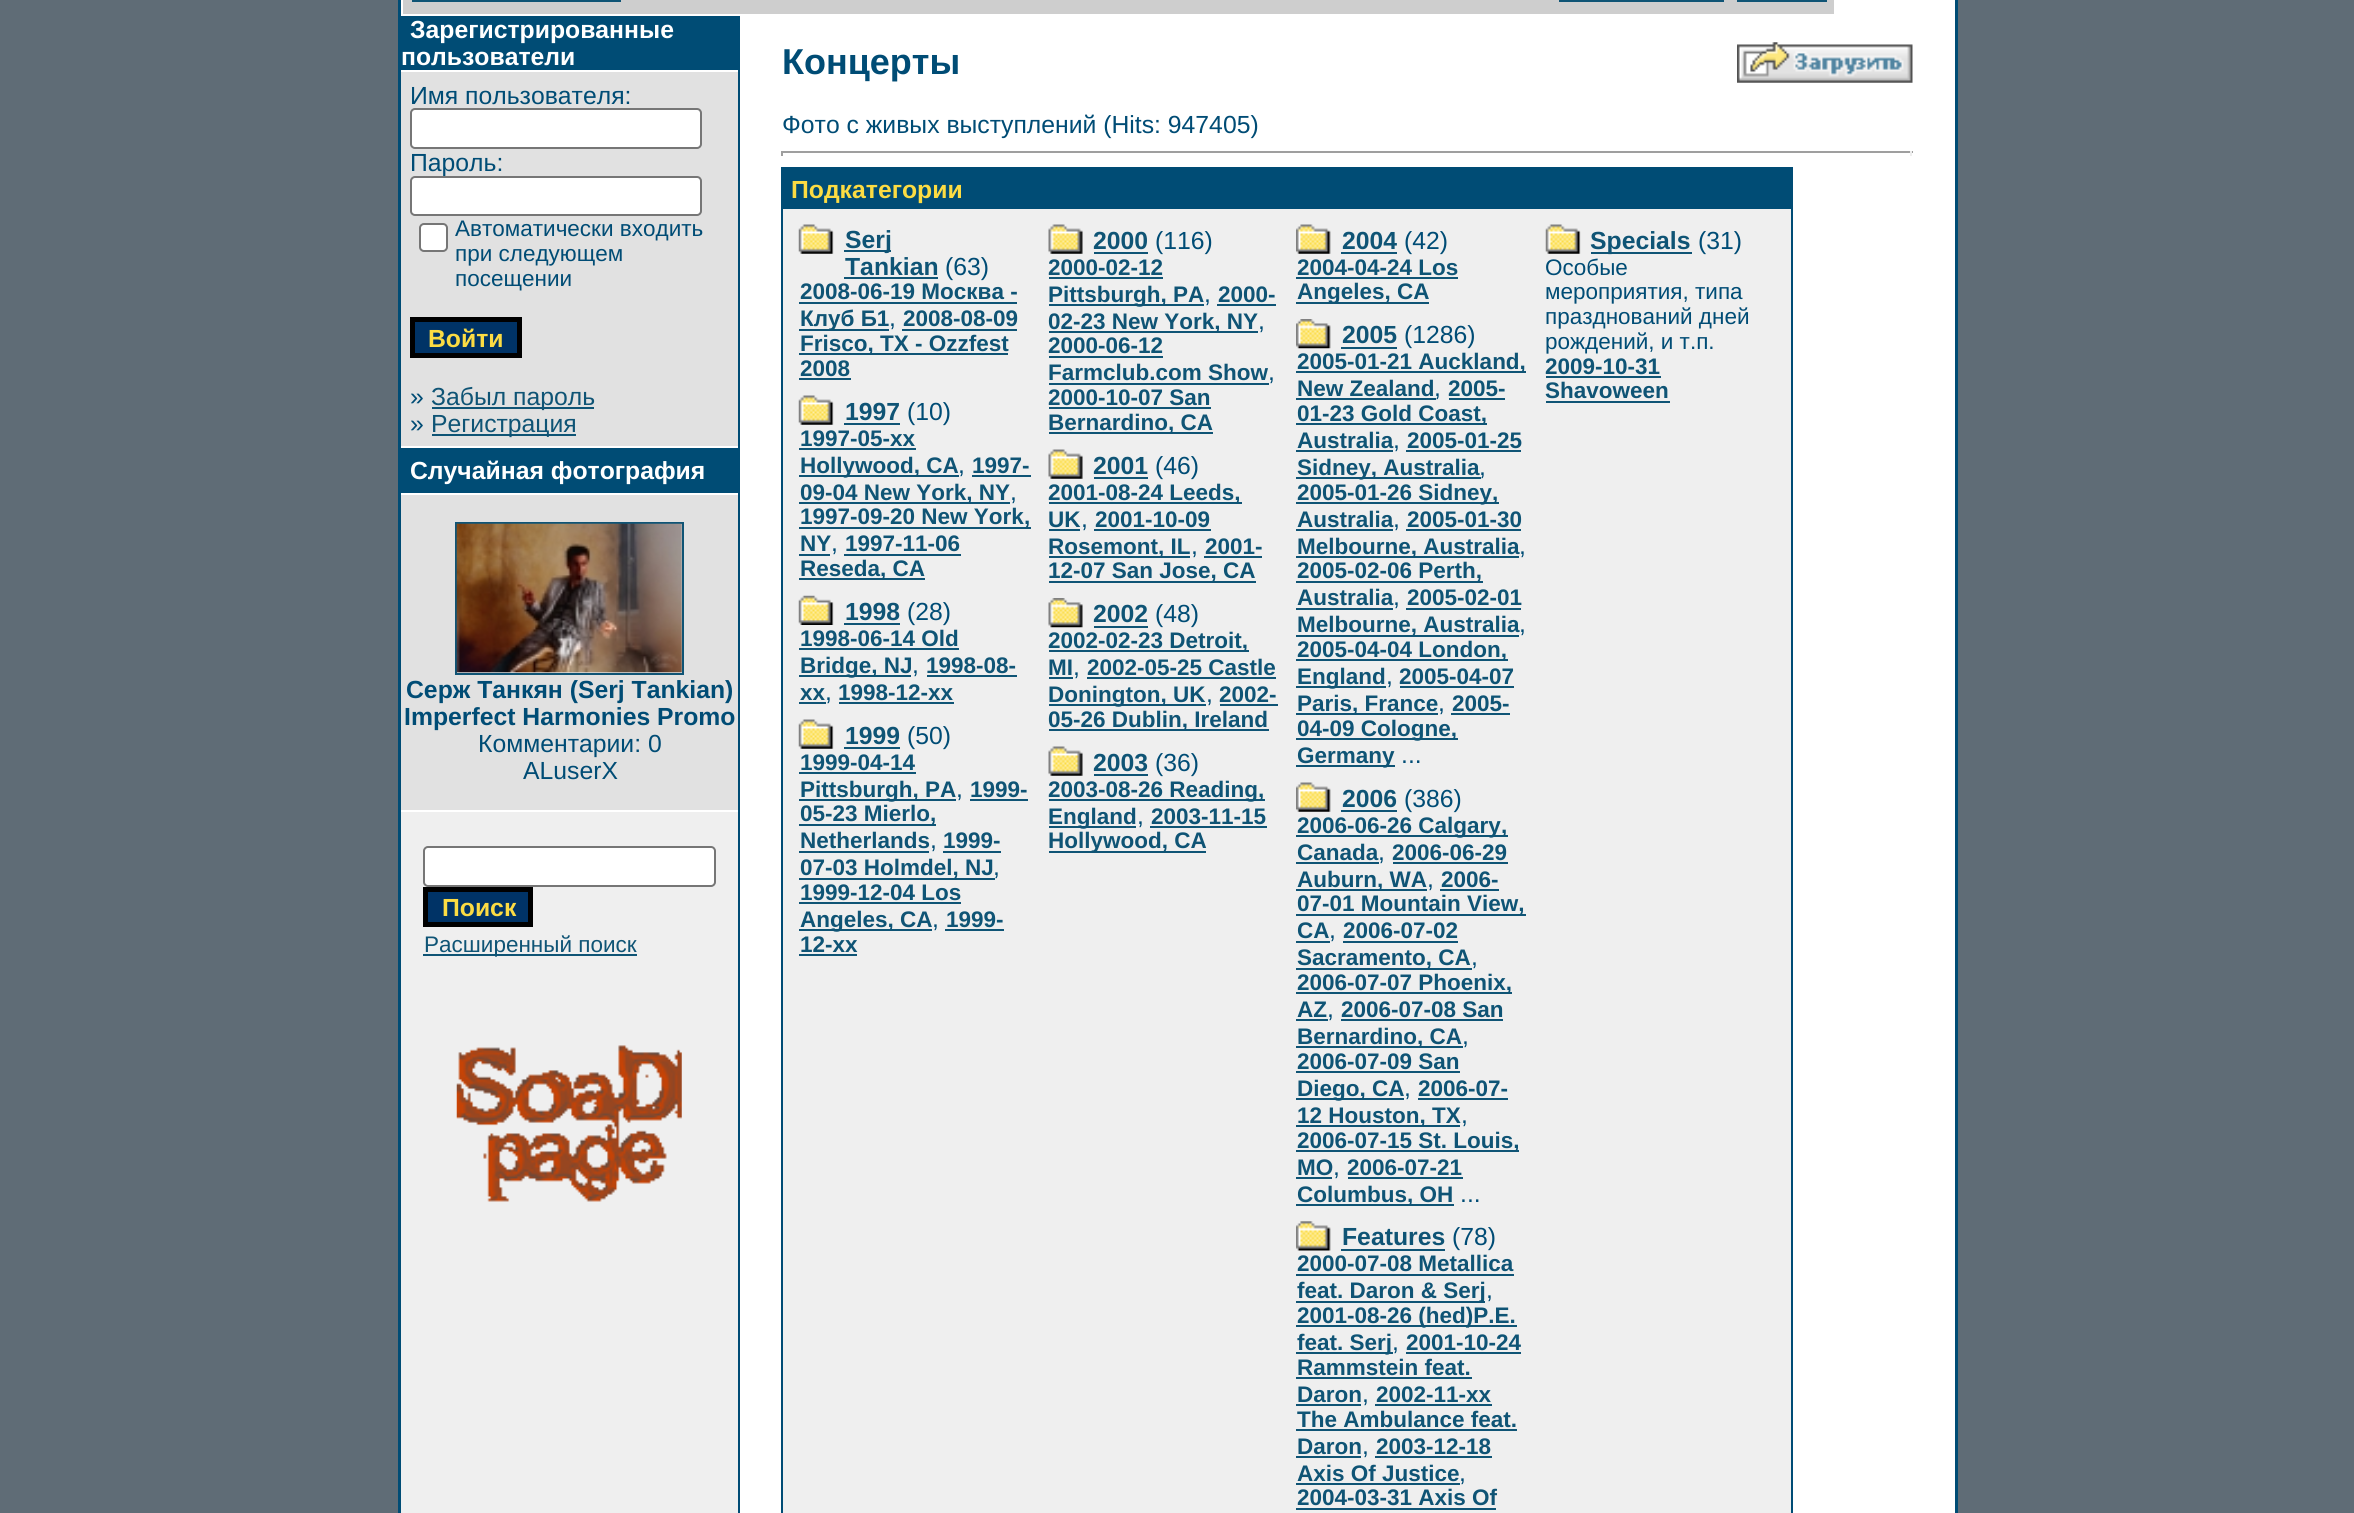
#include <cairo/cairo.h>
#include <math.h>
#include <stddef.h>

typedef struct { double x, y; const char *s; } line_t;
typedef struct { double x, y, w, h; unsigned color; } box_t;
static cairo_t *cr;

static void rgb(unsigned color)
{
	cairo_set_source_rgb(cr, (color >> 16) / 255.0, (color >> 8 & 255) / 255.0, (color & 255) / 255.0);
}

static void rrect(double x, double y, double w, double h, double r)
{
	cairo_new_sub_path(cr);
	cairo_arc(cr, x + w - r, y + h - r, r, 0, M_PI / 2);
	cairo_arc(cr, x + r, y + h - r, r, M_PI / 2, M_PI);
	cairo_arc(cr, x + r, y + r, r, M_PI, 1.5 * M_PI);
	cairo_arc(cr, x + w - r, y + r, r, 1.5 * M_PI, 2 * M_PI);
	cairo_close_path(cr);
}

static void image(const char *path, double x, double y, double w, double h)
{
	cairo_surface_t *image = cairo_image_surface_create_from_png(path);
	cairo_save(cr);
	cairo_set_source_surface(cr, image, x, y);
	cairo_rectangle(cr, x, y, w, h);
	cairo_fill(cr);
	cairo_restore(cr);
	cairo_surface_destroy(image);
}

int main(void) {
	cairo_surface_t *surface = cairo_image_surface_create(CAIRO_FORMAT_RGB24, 2354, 1513);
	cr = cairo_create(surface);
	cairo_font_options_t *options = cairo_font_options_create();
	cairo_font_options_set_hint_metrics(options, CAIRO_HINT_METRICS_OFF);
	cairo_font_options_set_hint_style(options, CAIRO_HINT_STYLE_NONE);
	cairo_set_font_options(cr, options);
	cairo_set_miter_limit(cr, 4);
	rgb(0x5f6c76);
	cairo_paint(cr);
	{
		static const box_t items[] = {
			{398, 0, 1560, 1513, 0x004c75},
			{401, 0, 1554, 1513, 0xffffff},
			{403, 0, 1431, 14, 0xcecece},
			{412, 0, 209, 2, 0x0f5475},
			{1559, 0, 165, 2, 0x0f5475},
			{1737, 0, 90, 2, 0x0f5475},
			{401, 812, 337, 701, 0xefefef},
			{401, 16, 337, 54, 0x004c75},
			{401, 72, 337, 374, 0xe1e1e1},
		};
		for (size_t i = 0; i < sizeof items / sizeof *items; i++) {
			rgb(items[i].color);
			cairo_rectangle(cr, items[i].x, items[i].y, items[i].w, items[i].h);
			cairo_fill(cr);
		}
	}
	rgb(0xffffff);
	rrect(411, 109, 290, 39, 4);
	cairo_fill_preserve(cr);
	rgb(0x767676);
	cairo_stroke(cr);
	rgb(0xffffff);
	rrect(420, 224, 27, 27, 4);
	cairo_fill_preserve(cr);
	rgb(0x767676);
	cairo_stroke(cr);
	rgb(0x003366);
	cairo_rectangle(cr, 412.5, 319.5, 107, 36);
	cairo_fill_preserve(cr);
	rgb(0x000000);
	cairo_set_line_width(cr, 5);
	cairo_stroke(cr);
	{
		static const box_t items[] = {
			{432, 407, 162, 2, 0x0f5475},
			{432, 434, 144, 2, 0x0f5475},
			{401, 448, 337, 45, 0x004c75},
			{401, 495, 337, 315, 0xe1e1e1},
		};
		for (size_t i = 0; i < sizeof items / sizeof *items; i++) {
			rgb(items[i].color);
			cairo_rectangle(cr, items[i].x, items[i].y, items[i].w, items[i].h);
			cairo_fill(cr);
		}
	}
	cairo_rectangle(cr, 456, 523, 227, 151);
	rgb(0x0f5475);
	cairo_set_line_width(cr, 2);
	cairo_stroke(cr);
	image("img/1.png", 456, 523, 226, 150);
	rgb(0xffffff);
	rrect(424, 847, 291, 39, 4);
	cairo_fill_preserve(cr);
	rgb(0x767676);
	cairo_stroke(cr);
	rgb(0x003366);
	cairo_rectangle(cr, 425.5, 889.5, 105, 35);
	cairo_fill_preserve(cr);
	rgb(0x000000);
	cairo_set_line_width(cr, 5);
	cairo_stroke(cr);
	rgb(0x0f5475);
	cairo_rectangle(cr, 423, 954, 214, 2);
	cairo_fill(cr);
	image("img/2.png", 456, 1045, 226, 157);
	rgb(0x004c75);
	cairo_rectangle(cr, 738, 16, 2, 1497);
	cairo_fill(cr);
	image("img/3.png", 1737, 42, 176, 41);
	{
		static const box_t items[] = {
			{781, 151, 1132, 2, 0x9f9f9f},
			{1910, 151, 2, 5, 0xeeeeee},
			{781, 151, 2, 5, 0x9f9f9f},
			{781, 167, 1012, 1346, 0x004c75},
			{783, 209, 1008, 1304, 0xefefef},
		};
		for (size_t i = 0; i < sizeof items / sizeof *items; i++) {
			rgb(items[i].color);
			cairo_rectangle(cr, items[i].x, items[i].y, items[i].w, items[i].h);
			cairo_fill(cr);
		}
	}
	image("img/4.png", 798, 224, 36, 30);
	{
		static const box_t items[] = {
			{844, 250, 47, 2, 0x0f5475},
			{844, 277, 94, 2, 0x0f5475},
			{799, 302, 218, 2, 0x0f5475},
			{799, 329, 90, 2, 0x0f5475},
			{902, 329, 115, 2, 0x0f5475},
			{799, 353, 209, 2, 0x0f5475},
			{799, 378, 52, 2, 0x0f5475},
		};
		for (size_t i = 0; i < sizeof items / sizeof *items; i++) {
			rgb(items[i].color);
			cairo_rectangle(cr, items[i].x, items[i].y, items[i].w, items[i].h);
			cairo_fill(cr);
		}
	}
	image("img/4.png", 798, 395, 36, 30);
	{
		static const box_t items[] = {
			{844, 423, 56, 2, 0x0f5475},
			{799, 448, 117, 2, 0x0f5475},
			{799, 475, 160, 2, 0x0f5475},
			{972, 475, 59, 2, 0x0f5475},
			{799, 502, 211, 2, 0x0f5475},
			{799, 527, 232, 2, 0x0f5475},
			{799, 554, 31, 2, 0x0f5475},
			{844, 554, 117, 2, 0x0f5475},
			{799, 578, 126, 2, 0x0f5475},
		};
		for (size_t i = 0; i < sizeof items / sizeof *items; i++) {
			rgb(items[i].color);
			cairo_rectangle(cr, items[i].x, items[i].y, items[i].w, items[i].h);
			cairo_fill(cr);
		}
	}
	image("img/5.png", 798, 595, 36, 30);
	{
		static const box_t items[] = {
			{844, 623, 56, 2, 0x0f5475},
			{799, 648, 160, 2, 0x0f5475},
			{799, 675, 112, 2, 0x0f5475},
			{927, 675, 90, 2, 0x0f5475},
			{799, 702, 27, 2, 0x0f5475},
			{839, 702, 115, 2, 0x0f5475},
		};
		for (size_t i = 0; i < sizeof items / sizeof *items; i++) {
			rgb(items[i].color);
			cairo_rectangle(cr, items[i].x, items[i].y, items[i].w, items[i].h);
			cairo_fill(cr);
		}
	}
	image("img/4.png", 798, 719, 36, 30);
	{
		static const box_t items[] = {
			{844, 747, 56, 2, 0x0f5475},
			{799, 772, 117, 2, 0x0f5475},
			{799, 799, 157, 2, 0x0f5475},
			{970, 799, 58, 2, 0x0f5475},
			{799, 824, 137, 2, 0x0f5475},
			{799, 851, 130, 2, 0x0f5475},
			{943, 851, 58, 2, 0x0f5475},
			{799, 878, 196, 2, 0x0f5475},
			{799, 902, 162, 2, 0x0f5475},
			{799, 929, 133, 2, 0x0f5475},
			{945, 929, 59, 2, 0x0f5475},
			{799, 954, 58, 2, 0x0f5475},
		};
		for (size_t i = 0; i < sizeof items / sizeof *items; i++) {
			rgb(items[i].color);
			cairo_rectangle(cr, items[i].x, items[i].y, items[i].w, items[i].h);
			cairo_fill(cr);
		}
	}
	image("img/6.png", 1048, 224, 35, 30);
	{
		static const box_t items[] = {
			{1094, 252, 54, 2, 0x0f5475},
			{1049, 277, 114, 2, 0x0f5475},
			{1049, 304, 155, 2, 0x0f5475},
			{1217, 304, 59, 2, 0x0f5475},
			{1049, 331, 209, 2, 0x0f5475},
			{1049, 356, 114, 2, 0x0f5475},
			{1049, 383, 220, 2, 0x0f5475},
			{1049, 407, 162, 2, 0x0f5475},
			{1049, 432, 164, 2, 0x0f5475},
		};
		for (size_t i = 0; i < sizeof items / sizeof *items; i++) {
			rgb(items[i].color);
			cairo_rectangle(cr, items[i].x, items[i].y, items[i].w, items[i].h);
			cairo_fill(cr);
		}
	}
	image("img/6.png", 1048, 449, 35, 30);
	{
		static const box_t items[] = {
			{1094, 477, 54, 2, 0x0f5475},
			{1049, 502, 193, 2, 0x0f5475},
			{1049, 529, 31, 2, 0x0f5475},
			{1094, 529, 117, 2, 0x0f5475},
			{1049, 556, 141, 2, 0x0f5475},
			{1204, 556, 58, 2, 0x0f5475},
			{1049, 581, 207, 2, 0x0f5475},
		};
		for (size_t i = 0; i < sizeof items / sizeof *items; i++) {
			rgb(items[i].color);
			cairo_rectangle(cr, items[i].x, items[i].y, items[i].w, items[i].h);
			cairo_fill(cr);
		}
	}
	image("img/7.png", 1048, 598, 35, 30);
	{
		static const box_t items[] = {
			{1094, 626, 54, 2, 0x0f5475},
			{1049, 650, 200, 2, 0x0f5475},
			{1049, 677, 24, 2, 0x0f5475},
			{1087, 677, 189, 2, 0x0f5475},
			{1049, 704, 157, 2, 0x0f5475},
			{1220, 704, 58, 2, 0x0f5475},
			{1049, 729, 220, 2, 0x0f5475},
		};
		for (size_t i = 0; i < sizeof items / sizeof *items; i++) {
			rgb(items[i].color);
			cairo_rectangle(cr, items[i].x, items[i].y, items[i].w, items[i].h);
			cairo_fill(cr);
		}
	}
	image("img/8.png", 1048, 746, 35, 30);
	{
		static const box_t items[] = {
			{1094, 774, 54, 2, 0x0f5475},
			{1049, 799, 216, 2, 0x0f5475},
			{1049, 826, 87, 2, 0x0f5475},
			{1150, 826, 117, 2, 0x0f5475},
			{1049, 851, 157, 2, 0x0f5475},
		};
		for (size_t i = 0; i < sizeof items / sizeof *items; i++) {
			rgb(items[i].color);
			cairo_rectangle(cr, items[i].x, items[i].y, items[i].w, items[i].h);
			cairo_fill(cr);
		}
	}
	image("img/9.png", 1296, 224, 35, 30);
	{
		static const box_t items[] = {
			{1341, 252, 56, 2, 0x0f5475},
			{1296, 277, 162, 2, 0x0f5475},
			{1296, 302, 133, 2, 0x0f5475},
		};
		for (size_t i = 0; i < sizeof items / sizeof *items; i++) {
			rgb(items[i].color);
			cairo_rectangle(cr, items[i].x, items[i].y, items[i].w, items[i].h);
			cairo_fill(cr);
		}
	}
	image("img/10.png", 1296, 319, 35, 30);
	{
		static const box_t items[] = {
			{1341, 347, 56, 2, 0x0f5475},
			{1296, 371, 230, 2, 0x0f5475},
			{1296, 398, 140, 2, 0x0f5475},
			{1449, 398, 56, 2, 0x0f5475},
			{1296, 423, 191, 2, 0x0f5475},
			{1296, 450, 97, 2, 0x0f5475},
			{1406, 450, 115, 2, 0x0f5475},
			{1296, 477, 185, 2, 0x0f5475},
			{1296, 502, 203, 2, 0x0f5475},
			{1296, 529, 97, 2, 0x0f5475},
			{1406, 529, 115, 2, 0x0f5475},
			{1296, 556, 223, 2, 0x0f5475},
			{1296, 581, 187, 2, 0x0f5475},
			{1296, 608, 97, 2, 0x0f5475},
			{1406, 608, 115, 2, 0x0f5475},
			{1296, 635, 223, 2, 0x0f5475},
			{1296, 659, 212, 2, 0x0f5475},
			{1296, 686, 90, 2, 0x0f5475},
			{1400, 686, 114, 2, 0x0f5475},
			{1296, 713, 142, 2, 0x0f5475},
			{1451, 713, 59, 2, 0x0f5475},
			{1296, 738, 162, 2, 0x0f5475},
			{1296, 765, 99, 2, 0x0f5475},
		};
		for (size_t i = 0; i < sizeof items / sizeof *items; i++) {
			rgb(items[i].color);
			cairo_rectangle(cr, items[i].x, items[i].y, items[i].w, items[i].h);
			cairo_fill(cr);
		}
	}
	image("img/9.png", 1296, 782, 35, 30);
	{
		static const box_t items[] = {
			{1341, 810, 56, 2, 0x0f5475},
			{1296, 835, 212, 2, 0x0f5475},
			{1296, 862, 83, 2, 0x0f5475},
			{1393, 862, 115, 2, 0x0f5475},
			{1296, 889, 131, 2, 0x0f5475},
			{1440, 889, 59, 2, 0x0f5475},
			{1296, 914, 230, 2, 0x0f5475},
			{1296, 941, 34, 2, 0x0f5475},
			{1343, 941, 115, 2, 0x0f5475},
			{1296, 968, 176, 2, 0x0f5475},
			{1296, 992, 216, 2, 0x0f5475},
			{1296, 1019, 32, 2, 0x0f5475},
			{1341, 1019, 162, 2, 0x0f5475},
			{1296, 1046, 167, 2, 0x0f5475},
			{1296, 1071, 164, 2, 0x0f5475},
			{1296, 1098, 108, 2, 0x0f5475},
			{1418, 1098, 90, 2, 0x0f5475},
			{1296, 1125, 164, 2, 0x0f5475},
			{1296, 1150, 223, 2, 0x0f5475},
			{1296, 1177, 36, 2, 0x0f5475},
			{1348, 1177, 115, 2, 0x0f5475},
			{1296, 1204, 158, 2, 0x0f5475},
		};
		for (size_t i = 0; i < sizeof items / sizeof *items; i++) {
			rgb(items[i].color);
			cairo_rectangle(cr, items[i].x, items[i].y, items[i].w, items[i].h);
			cairo_fill(cr);
		}
	}
	image("img/11.png", 1296, 1221, 35, 30);
	{
		static const box_t items[] = {
			{1341, 1249, 104, 2, 0x0f5475},
			{1296, 1274, 218, 2, 0x0f5475},
			{1296, 1301, 189, 2, 0x0f5475},
			{1296, 1325, 221, 2, 0x0f5475},
			{1296, 1352, 97, 2, 0x0f5475},
			{1406, 1352, 115, 2, 0x0f5475},
			{1296, 1377, 176, 2, 0x0f5475},
			{1296, 1404, 65, 2, 0x0f5475},
			{1375, 1404, 117, 2, 0x0f5475},
			{1296, 1429, 221, 2, 0x0f5475},
			{1296, 1456, 65, 2, 0x0f5475},
			{1375, 1456, 117, 2, 0x0f5475},
			{1296, 1483, 164, 2, 0x0f5475},
			{1296, 1508, 200, 2, 0x0f5475},
		};
		for (size_t i = 0; i < sizeof items / sizeof *items; i++) {
			rgb(items[i].color);
			cairo_rectangle(cr, items[i].x, items[i].y, items[i].w, items[i].h);
			cairo_fill(cr);
		}
	}
	image("img/4.png", 1545, 224, 36, 30);
	{
		static const box_t items[] = {
			{1591, 252, 101, 2, 0x0f5475},
			{1546, 376, 115, 2, 0x0f5475},
			{1546, 401, 124, 2, 0x0f5475},
		};
		for (size_t i = 0; i < sizeof items / sizeof *items; i++) {
			rgb(items[i].color);
			cairo_rectangle(cr, items[i].x, items[i].y, items[i].w, items[i].h);
			cairo_fill(cr);
		}
	}
	cairo_select_font_face(cr, "Liberation Sans", CAIRO_FONT_SLANT_NORMAL, CAIRO_FONT_WEIGHT_BOLD);
	cairo_set_font_size(cr, 24.75);
	rgb(0xffffff);
	cairo_move_to(cr, 410, 38);
	cairo_show_text(cr, "Зарегистрированные");
	cairo_move_to(cr, 401, 65);
	cairo_show_text(cr, "пользователи");
	cairo_select_font_face(cr, "Liberation Sans", CAIRO_FONT_SLANT_NORMAL, CAIRO_FONT_WEIGHT_NORMAL);
	rgb(0x004c75);
	cairo_move_to(cr, 410, 104);
	cairo_show_text(cr, "Имя пользователя:");
	cairo_move_to(cr, 410, 171);
	cairo_show_text(cr, "Пароль:");
	rgb(0xffffff);
	rrect(411, 177, 290, 38, 4);
	cairo_fill_preserve(cr);
	rgb(0x767676);
	cairo_set_line_width(cr, 2);
	cairo_stroke(cr);
	cairo_set_font_size(cr, 22.5);
	rgb(0x004c75);
	{
		static const line_t items[] = {
			{455, 236, "Автоматически входить"},
			{455, 261, "при следующем"},
			{455, 286, "посещении"},
		};
		for (size_t i = 0; i < sizeof items / sizeof *items; i++) {
			cairo_move_to(cr, items[i].x, items[i].y);
			cairo_show_text(cr, items[i].s);
		}
	}
	cairo_select_font_face(cr, "Liberation Sans", CAIRO_FONT_SLANT_NORMAL, CAIRO_FONT_WEIGHT_BOLD);
	cairo_set_font_size(cr, 24.75);
	rgb(0xfcdc43);
	cairo_move_to(cr, 428, 347);
	cairo_show_text(cr, "Войти");
	cairo_select_font_face(cr, "Liberation Sans", CAIRO_FONT_SLANT_NORMAL, CAIRO_FONT_WEIGHT_NORMAL);
	rgb(0x004c75);
	cairo_move_to(cr, 410, 405);
	cairo_show_text(cr, "»");
	rgb(0x0f5475);
	cairo_move_to(cr, 431, 405);
	cairo_show_text(cr, "Забыл пароль");
	rgb(0x004c75);
	cairo_move_to(cr, 410, 432);
	cairo_show_text(cr, "»");
	rgb(0x0f5475);
	cairo_move_to(cr, 431, 432);
	cairo_show_text(cr, "Регистрация");
	cairo_select_font_face(cr, "Liberation Sans", CAIRO_FONT_SLANT_NORMAL, CAIRO_FONT_WEIGHT_BOLD);
	rgb(0xffffff);
	cairo_move_to(cr, 410, 479);
	cairo_show_text(cr, "Случайная фотография");
	rgb(0x004c75);
	cairo_move_to(cr, 406, 698);
	cairo_show_text(cr, "Серж Танкян (Serj Tankian)");
	cairo_move_to(cr, 404, 725);
	cairo_show_text(cr, "Imperfect Harmonies Promo");
	cairo_select_font_face(cr, "Liberation Sans", CAIRO_FONT_SLANT_NORMAL, CAIRO_FONT_WEIGHT_NORMAL);
	cairo_move_to(cr, 478, 752);
	cairo_show_text(cr, "Комментарии: 0");
	cairo_move_to(cr, 523, 779);
	cairo_show_text(cr, "ALuserX");
	cairo_select_font_face(cr, "Liberation Sans", CAIRO_FONT_SLANT_NORMAL, CAIRO_FONT_WEIGHT_BOLD);
	rgb(0xfcdc43);
	cairo_move_to(cr, 442, 916);
	cairo_show_text(cr, "Поиск");
	cairo_select_font_face(cr, "Liberation Sans", CAIRO_FONT_SLANT_NORMAL, CAIRO_FONT_WEIGHT_NORMAL);
	cairo_set_font_size(cr, 22.5);
	rgb(0x0f5475);
	cairo_move_to(cr, 424, 952);
	cairo_show_text(cr, "Расширенный поиск");
	cairo_select_font_face(cr, "Liberation Sans", CAIRO_FONT_SLANT_NORMAL, CAIRO_FONT_WEIGHT_BOLD);
	cairo_set_font_size(cr, 36);
	rgb(0x004c75);
	cairo_move_to(cr, 782, 74);
	cairo_show_text(cr, "Концерты");
	cairo_select_font_face(cr, "Liberation Sans", CAIRO_FONT_SLANT_NORMAL, CAIRO_FONT_WEIGHT_NORMAL);
	cairo_set_font_size(cr, 24.75);
	cairo_move_to(cr, 782, 133);
	cairo_show_text(cr, "Фото с живых выступлений (Hits: 947405)");
	cairo_select_font_face(cr, "Liberation Sans", CAIRO_FONT_SLANT_NORMAL, CAIRO_FONT_WEIGHT_BOLD);
	rgb(0xfcdc43);
	cairo_move_to(cr, 791, 198);
	cairo_show_text(cr, "Подкатегории");
	rgb(0x0f5475);
	cairo_move_to(cr, 845, 248);
	cairo_show_text(cr, "Serj");
	cairo_move_to(cr, 845, 275);
	cairo_show_text(cr, "Tankian");
	cairo_select_font_face(cr, "Liberation Sans", CAIRO_FONT_SLANT_NORMAL, CAIRO_FONT_WEIGHT_NORMAL);
	rgb(0x004c75);
	cairo_move_to(cr, 945, 275);
	cairo_show_text(cr, "(63)");
	cairo_select_font_face(cr, "Liberation Sans", CAIRO_FONT_SLANT_NORMAL, CAIRO_FONT_WEIGHT_BOLD);
	cairo_set_font_size(cr, 22.5);
	rgb(0x0f5475);
	cairo_move_to(cr, 800, 299);
	cairo_show_text(cr, "2008-06-19 Москва -");
	cairo_move_to(cr, 800, 326);
	cairo_show_text(cr, "Клуб Б1");
	cairo_select_font_face(cr, "Liberation Sans", CAIRO_FONT_SLANT_NORMAL, CAIRO_FONT_WEIGHT_NORMAL);
	cairo_set_font_size(cr, 24.75);
	rgb(0x004c75);
	cairo_move_to(cr, 889, 326);
	cairo_show_text(cr, ",");
	cairo_select_font_face(cr, "Liberation Sans", CAIRO_FONT_SLANT_NORMAL, CAIRO_FONT_WEIGHT_BOLD);
	cairo_set_font_size(cr, 22.5);
	rgb(0x0f5475);
	{
		static const line_t items[] = {
			{903, 326, "2008-08-09"},
			{800, 351, "Frisco, TX - Ozzfest"},
			{800, 376, "2008"},
		};
		for (size_t i = 0; i < sizeof items / sizeof *items; i++) {
			cairo_move_to(cr, items[i].x, items[i].y);
			cairo_show_text(cr, items[i].s);
		}
	}
	cairo_set_font_size(cr, 24.75);
	cairo_move_to(cr, 845, 420);
	cairo_show_text(cr, "1997");
	cairo_select_font_face(cr, "Liberation Sans", CAIRO_FONT_SLANT_NORMAL, CAIRO_FONT_WEIGHT_NORMAL);
	rgb(0x004c75);
	cairo_move_to(cr, 907, 420);
	cairo_show_text(cr, "(10)");
	cairo_select_font_face(cr, "Liberation Sans", CAIRO_FONT_SLANT_NORMAL, CAIRO_FONT_WEIGHT_BOLD);
	cairo_set_font_size(cr, 22.5);
	rgb(0x0f5475);
	cairo_move_to(cr, 800, 446);
	cairo_show_text(cr, "1997-05-xx");
	cairo_move_to(cr, 800, 473);
	cairo_show_text(cr, "Hollywood, CA");
	cairo_select_font_face(cr, "Liberation Sans", CAIRO_FONT_SLANT_NORMAL, CAIRO_FONT_WEIGHT_NORMAL);
	cairo_set_font_size(cr, 24.75);
	rgb(0x004c75);
	cairo_move_to(cr, 958, 473);
	cairo_show_text(cr, ",");
	cairo_select_font_face(cr, "Liberation Sans", CAIRO_FONT_SLANT_NORMAL, CAIRO_FONT_WEIGHT_BOLD);
	cairo_set_font_size(cr, 22.5);
	rgb(0x0f5475);
	cairo_move_to(cr, 972, 473);
	cairo_show_text(cr, "1997-");
	cairo_move_to(cr, 800, 500);
	cairo_show_text(cr, "09-04 New York, NY");
	cairo_select_font_face(cr, "Liberation Sans", CAIRO_FONT_SLANT_NORMAL, CAIRO_FONT_WEIGHT_NORMAL);
	cairo_set_font_size(cr, 24.75);
	rgb(0x004c75);
	cairo_move_to(cr, 1010, 500);
	cairo_show_text(cr, ",");
	cairo_select_font_face(cr, "Liberation Sans", CAIRO_FONT_SLANT_NORMAL, CAIRO_FONT_WEIGHT_BOLD);
	cairo_set_font_size(cr, 22.5);
	rgb(0x0f5475);
	cairo_move_to(cr, 800, 524);
	cairo_show_text(cr, "1997-09-20 New York,");
	cairo_move_to(cr, 800, 551);
	cairo_show_text(cr, "NY");
	cairo_select_font_face(cr, "Liberation Sans", CAIRO_FONT_SLANT_NORMAL, CAIRO_FONT_WEIGHT_NORMAL);
	cairo_set_font_size(cr, 24.75);
	rgb(0x004c75);
	cairo_move_to(cr, 831, 551);
	cairo_show_text(cr, ",");
	cairo_select_font_face(cr, "Liberation Sans", CAIRO_FONT_SLANT_NORMAL, CAIRO_FONT_WEIGHT_BOLD);
	cairo_set_font_size(cr, 22.5);
	rgb(0x0f5475);
	cairo_move_to(cr, 845, 551);
	cairo_show_text(cr, "1997-11-06");
	cairo_move_to(cr, 800, 576);
	cairo_show_text(cr, "Reseda, CA");
	cairo_set_font_size(cr, 24.75);
	cairo_move_to(cr, 845, 620);
	cairo_show_text(cr, "1998");
	cairo_select_font_face(cr, "Liberation Sans", CAIRO_FONT_SLANT_NORMAL, CAIRO_FONT_WEIGHT_NORMAL);
	rgb(0x004c75);
	cairo_move_to(cr, 907, 620);
	cairo_show_text(cr, "(28)");
	cairo_select_font_face(cr, "Liberation Sans", CAIRO_FONT_SLANT_NORMAL, CAIRO_FONT_WEIGHT_BOLD);
	cairo_set_font_size(cr, 22.5);
	rgb(0x0f5475);
	cairo_move_to(cr, 800, 646);
	cairo_show_text(cr, "1998-06-14 Old");
	cairo_move_to(cr, 800, 673);
	cairo_show_text(cr, "Bridge, NJ");
	cairo_select_font_face(cr, "Liberation Sans", CAIRO_FONT_SLANT_NORMAL, CAIRO_FONT_WEIGHT_NORMAL);
	cairo_set_font_size(cr, 24.75);
	rgb(0x004c75);
	cairo_move_to(cr, 912, 673);
	cairo_show_text(cr, ",");
	cairo_select_font_face(cr, "Liberation Sans", CAIRO_FONT_SLANT_NORMAL, CAIRO_FONT_WEIGHT_BOLD);
	cairo_set_font_size(cr, 22.5);
	rgb(0x0f5475);
	cairo_move_to(cr, 926, 673);
	cairo_show_text(cr, "1998-08-");
	cairo_move_to(cr, 800, 700);
	cairo_show_text(cr, "xx");
	cairo_select_font_face(cr, "Liberation Sans", CAIRO_FONT_SLANT_NORMAL, CAIRO_FONT_WEIGHT_NORMAL);
	cairo_set_font_size(cr, 24.75);
	rgb(0x004c75);
	cairo_move_to(cr, 825, 700);
	cairo_show_text(cr, ",");
	cairo_select_font_face(cr, "Liberation Sans", CAIRO_FONT_SLANT_NORMAL, CAIRO_FONT_WEIGHT_BOLD);
	cairo_set_font_size(cr, 22.5);
	rgb(0x0f5475);
	cairo_move_to(cr, 838, 700);
	cairo_show_text(cr, "1998-12-xx");
	cairo_set_font_size(cr, 24.75);
	cairo_move_to(cr, 845, 744);
	cairo_show_text(cr, "1999");
	cairo_select_font_face(cr, "Liberation Sans", CAIRO_FONT_SLANT_NORMAL, CAIRO_FONT_WEIGHT_NORMAL);
	rgb(0x004c75);
	cairo_move_to(cr, 907, 744);
	cairo_show_text(cr, "(50)");
	cairo_select_font_face(cr, "Liberation Sans", CAIRO_FONT_SLANT_NORMAL, CAIRO_FONT_WEIGHT_BOLD);
	cairo_set_font_size(cr, 22.5);
	rgb(0x0f5475);
	cairo_move_to(cr, 800, 770);
	cairo_show_text(cr, "1999-04-14");
	cairo_move_to(cr, 800, 797);
	cairo_show_text(cr, "Pittsburgh, PA");
	cairo_select_font_face(cr, "Liberation Sans", CAIRO_FONT_SLANT_NORMAL, CAIRO_FONT_WEIGHT_NORMAL);
	cairo_set_font_size(cr, 24.75);
	rgb(0x004c75);
	cairo_move_to(cr, 956, 797);
	cairo_show_text(cr, ",");
	cairo_select_font_face(cr, "Liberation Sans", CAIRO_FONT_SLANT_NORMAL, CAIRO_FONT_WEIGHT_BOLD);
	cairo_set_font_size(cr, 22.5);
	rgb(0x0f5475);
	{
		static const line_t items[] = {
			{970, 797, "1999-"},
			{800, 821, "05-23 Mierlo,"},
			{800, 848, "Netherlands"},
		};
		for (size_t i = 0; i < sizeof items / sizeof *items; i++) {
			cairo_move_to(cr, items[i].x, items[i].y);
			cairo_show_text(cr, items[i].s);
		}
	}
	cairo_select_font_face(cr, "Liberation Sans", CAIRO_FONT_SLANT_NORMAL, CAIRO_FONT_WEIGHT_NORMAL);
	cairo_set_font_size(cr, 24.75);
	rgb(0x004c75);
	cairo_move_to(cr, 930, 848);
	cairo_show_text(cr, ",");
	cairo_select_font_face(cr, "Liberation Sans", CAIRO_FONT_SLANT_NORMAL, CAIRO_FONT_WEIGHT_BOLD);
	cairo_set_font_size(cr, 22.5);
	rgb(0x0f5475);
	cairo_move_to(cr, 943, 848);
	cairo_show_text(cr, "1999-");
	cairo_move_to(cr, 800, 875);
	cairo_show_text(cr, "07-03 Holmdel, NJ");
	cairo_select_font_face(cr, "Liberation Sans", CAIRO_FONT_SLANT_NORMAL, CAIRO_FONT_WEIGHT_NORMAL);
	cairo_set_font_size(cr, 24.75);
	rgb(0x004c75);
	cairo_move_to(cr, 993, 875);
	cairo_show_text(cr, ",");
	cairo_select_font_face(cr, "Liberation Sans", CAIRO_FONT_SLANT_NORMAL, CAIRO_FONT_WEIGHT_BOLD);
	cairo_set_font_size(cr, 22.5);
	rgb(0x0f5475);
	cairo_move_to(cr, 800, 900);
	cairo_show_text(cr, "1999-12-04 Los");
	cairo_move_to(cr, 800, 927);
	cairo_show_text(cr, "Angeles, CA");
	cairo_select_font_face(cr, "Liberation Sans", CAIRO_FONT_SLANT_NORMAL, CAIRO_FONT_WEIGHT_NORMAL);
	cairo_set_font_size(cr, 24.75);
	rgb(0x004c75);
	cairo_move_to(cr, 932, 927);
	cairo_show_text(cr, ",");
	cairo_select_font_face(cr, "Liberation Sans", CAIRO_FONT_SLANT_NORMAL, CAIRO_FONT_WEIGHT_BOLD);
	cairo_set_font_size(cr, 22.5);
	rgb(0x0f5475);
	cairo_move_to(cr, 946, 927);
	cairo_show_text(cr, "1999-");
	cairo_move_to(cr, 800, 952);
	cairo_show_text(cr, "12-xx");
	cairo_set_font_size(cr, 24.75);
	cairo_move_to(cr, 1093, 249);
	cairo_show_text(cr, "2000");
	cairo_select_font_face(cr, "Liberation Sans", CAIRO_FONT_SLANT_NORMAL, CAIRO_FONT_WEIGHT_NORMAL);
	rgb(0x004c75);
	cairo_move_to(cr, 1155, 249);
	cairo_show_text(cr, "(116)");
	cairo_select_font_face(cr, "Liberation Sans", CAIRO_FONT_SLANT_NORMAL, CAIRO_FONT_WEIGHT_BOLD);
	cairo_set_font_size(cr, 22.5);
	rgb(0x0f5475);
	cairo_move_to(cr, 1048, 275);
	cairo_show_text(cr, "2000-02-12");
	cairo_move_to(cr, 1048, 302);
	cairo_show_text(cr, "Pittsburgh, PA");
	cairo_select_font_face(cr, "Liberation Sans", CAIRO_FONT_SLANT_NORMAL, CAIRO_FONT_WEIGHT_NORMAL);
	cairo_set_font_size(cr, 24.75);
	rgb(0x004c75);
	cairo_move_to(cr, 1204, 302);
	cairo_show_text(cr, ",");
	cairo_select_font_face(cr, "Liberation Sans", CAIRO_FONT_SLANT_NORMAL, CAIRO_FONT_WEIGHT_BOLD);
	cairo_set_font_size(cr, 22.5);
	rgb(0x0f5475);
	cairo_move_to(cr, 1218, 302);
	cairo_show_text(cr, "2000-");
	cairo_move_to(cr, 1048, 329);
	cairo_show_text(cr, "02-23 New York, NY");
	cairo_select_font_face(cr, "Liberation Sans", CAIRO_FONT_SLANT_NORMAL, CAIRO_FONT_WEIGHT_NORMAL);
	cairo_set_font_size(cr, 24.75);
	rgb(0x004c75);
	cairo_move_to(cr, 1258, 329);
	cairo_show_text(cr, ",");
	cairo_select_font_face(cr, "Liberation Sans", CAIRO_FONT_SLANT_NORMAL, CAIRO_FONT_WEIGHT_BOLD);
	cairo_set_font_size(cr, 22.5);
	rgb(0x0f5475);
	cairo_move_to(cr, 1048, 353);
	cairo_show_text(cr, "2000-06-12");
	cairo_move_to(cr, 1048, 380);
	cairo_show_text(cr, "Farmclub.com Show");
	cairo_select_font_face(cr, "Liberation Sans", CAIRO_FONT_SLANT_NORMAL, CAIRO_FONT_WEIGHT_NORMAL);
	cairo_set_font_size(cr, 24.75);
	rgb(0x004c75);
	cairo_move_to(cr, 1268, 380);
	cairo_show_text(cr, ",");
	cairo_select_font_face(cr, "Liberation Sans", CAIRO_FONT_SLANT_NORMAL, CAIRO_FONT_WEIGHT_BOLD);
	cairo_set_font_size(cr, 22.5);
	rgb(0x0f5475);
	cairo_move_to(cr, 1048, 405);
	cairo_show_text(cr, "2000-10-07 San");
	cairo_move_to(cr, 1048, 430);
	cairo_show_text(cr, "Bernardino, CA");
	cairo_set_font_size(cr, 24.75);
	cairo_move_to(cr, 1093, 474);
	cairo_show_text(cr, "2001");
	cairo_select_font_face(cr, "Liberation Sans", CAIRO_FONT_SLANT_NORMAL, CAIRO_FONT_WEIGHT_NORMAL);
	rgb(0x004c75);
	cairo_move_to(cr, 1155, 474);
	cairo_show_text(cr, "(46)");
	cairo_select_font_face(cr, "Liberation Sans", CAIRO_FONT_SLANT_NORMAL, CAIRO_FONT_WEIGHT_BOLD);
	cairo_set_font_size(cr, 22.5);
	rgb(0x0f5475);
	cairo_move_to(cr, 1048, 500);
	cairo_show_text(cr, "2001-08-24 Leeds,");
	cairo_move_to(cr, 1048, 527);
	cairo_show_text(cr, "UK");
	cairo_select_font_face(cr, "Liberation Sans", CAIRO_FONT_SLANT_NORMAL, CAIRO_FONT_WEIGHT_NORMAL);
	cairo_set_font_size(cr, 24.75);
	rgb(0x004c75);
	cairo_move_to(cr, 1081, 527);
	cairo_show_text(cr, ",");
	cairo_select_font_face(cr, "Liberation Sans", CAIRO_FONT_SLANT_NORMAL, CAIRO_FONT_WEIGHT_BOLD);
	cairo_set_font_size(cr, 22.5);
	rgb(0x0f5475);
	cairo_move_to(cr, 1095, 527);
	cairo_show_text(cr, "2001-10-09");
	cairo_move_to(cr, 1048, 554);
	cairo_show_text(cr, "Rosemont, IL");
	cairo_select_font_face(cr, "Liberation Sans", CAIRO_FONT_SLANT_NORMAL, CAIRO_FONT_WEIGHT_NORMAL);
	cairo_set_font_size(cr, 24.75);
	rgb(0x004c75);
	cairo_move_to(cr, 1191, 554);
	cairo_show_text(cr, ",");
	cairo_select_font_face(cr, "Liberation Sans", CAIRO_FONT_SLANT_NORMAL, CAIRO_FONT_WEIGHT_BOLD);
	cairo_set_font_size(cr, 22.5);
	rgb(0x0f5475);
	cairo_move_to(cr, 1205, 554);
	cairo_show_text(cr, "2001-");
	cairo_move_to(cr, 1048, 578);
	cairo_show_text(cr, "12-07 San Jose, CA");
	cairo_set_font_size(cr, 24.75);
	cairo_move_to(cr, 1093, 622);
	cairo_show_text(cr, "2002");
	cairo_select_font_face(cr, "Liberation Sans", CAIRO_FONT_SLANT_NORMAL, CAIRO_FONT_WEIGHT_NORMAL);
	rgb(0x004c75);
	cairo_move_to(cr, 1155, 622);
	cairo_show_text(cr, "(48)");
	cairo_select_font_face(cr, "Liberation Sans", CAIRO_FONT_SLANT_NORMAL, CAIRO_FONT_WEIGHT_BOLD);
	cairo_set_font_size(cr, 22.5);
	rgb(0x0f5475);
	cairo_move_to(cr, 1048, 648);
	cairo_show_text(cr, "2002-02-23 Detroit,");
	cairo_move_to(cr, 1048, 675);
	cairo_show_text(cr, "MI");
	cairo_select_font_face(cr, "Liberation Sans", CAIRO_FONT_SLANT_NORMAL, CAIRO_FONT_WEIGHT_NORMAL);
	cairo_set_font_size(cr, 24.75);
	rgb(0x004c75);
	cairo_move_to(cr, 1073, 675);
	cairo_show_text(cr, ",");
	cairo_select_font_face(cr, "Liberation Sans", CAIRO_FONT_SLANT_NORMAL, CAIRO_FONT_WEIGHT_BOLD);
	cairo_set_font_size(cr, 22.5);
	rgb(0x0f5475);
	cairo_move_to(cr, 1087, 675);
	cairo_show_text(cr, "2002-05-25 Castle");
	cairo_move_to(cr, 1048, 702);
	cairo_show_text(cr, "Donington, UK");
	cairo_select_font_face(cr, "Liberation Sans", CAIRO_FONT_SLANT_NORMAL, CAIRO_FONT_WEIGHT_NORMAL);
	cairo_set_font_size(cr, 24.75);
	rgb(0x004c75);
	cairo_move_to(cr, 1206, 702);
	cairo_show_text(cr, ",");
	cairo_select_font_face(cr, "Liberation Sans", CAIRO_FONT_SLANT_NORMAL, CAIRO_FONT_WEIGHT_BOLD);
	cairo_set_font_size(cr, 22.5);
	rgb(0x0f5475);
	cairo_move_to(cr, 1219, 702);
	cairo_show_text(cr, "2002-");
	cairo_move_to(cr, 1048, 727);
	cairo_show_text(cr, "05-26 Dublin, Ireland");
	cairo_set_font_size(cr, 24.75);
	cairo_move_to(cr, 1093, 771);
	cairo_show_text(cr, "2003");
	cairo_select_font_face(cr, "Liberation Sans", CAIRO_FONT_SLANT_NORMAL, CAIRO_FONT_WEIGHT_NORMAL);
	rgb(0x004c75);
	cairo_move_to(cr, 1155, 771);
	cairo_show_text(cr, "(36)");
	cairo_select_font_face(cr, "Liberation Sans", CAIRO_FONT_SLANT_NORMAL, CAIRO_FONT_WEIGHT_BOLD);
	cairo_set_font_size(cr, 22.5);
	rgb(0x0f5475);
	cairo_move_to(cr, 1048, 797);
	cairo_show_text(cr, "2003-08-26 Reading,");
	cairo_move_to(cr, 1048, 824);
	cairo_show_text(cr, "England");
	cairo_select_font_face(cr, "Liberation Sans", CAIRO_FONT_SLANT_NORMAL, CAIRO_FONT_WEIGHT_NORMAL);
	cairo_set_font_size(cr, 24.75);
	rgb(0x004c75);
	cairo_move_to(cr, 1137, 824);
	cairo_show_text(cr, ",");
	cairo_select_font_face(cr, "Liberation Sans", CAIRO_FONT_SLANT_NORMAL, CAIRO_FONT_WEIGHT_BOLD);
	cairo_set_font_size(cr, 22.5);
	rgb(0x0f5475);
	cairo_move_to(cr, 1151, 824);
	cairo_show_text(cr, "2003-11-15");
	cairo_move_to(cr, 1048, 848);
	cairo_show_text(cr, "Hollywood, CA");
	cairo_set_font_size(cr, 24.75);
	cairo_move_to(cr, 1342, 249);
	cairo_show_text(cr, "2004");
	cairo_select_font_face(cr, "Liberation Sans", CAIRO_FONT_SLANT_NORMAL, CAIRO_FONT_WEIGHT_NORMAL);
	rgb(0x004c75);
	cairo_move_to(cr, 1404, 249);
	cairo_show_text(cr, "(42)");
	cairo_select_font_face(cr, "Liberation Sans", CAIRO_FONT_SLANT_NORMAL, CAIRO_FONT_WEIGHT_BOLD);
	cairo_set_font_size(cr, 22.5);
	rgb(0x0f5475);
	cairo_move_to(cr, 1297, 275);
	cairo_show_text(cr, "2004-04-24 Los");
	cairo_move_to(cr, 1297, 299);
	cairo_show_text(cr, "Angeles, CA");
	cairo_set_font_size(cr, 24.75);
	cairo_move_to(cr, 1342, 343);
	cairo_show_text(cr, "2005");
	cairo_select_font_face(cr, "Liberation Sans", CAIRO_FONT_SLANT_NORMAL, CAIRO_FONT_WEIGHT_NORMAL);
	rgb(0x004c75);
	cairo_move_to(cr, 1404, 343);
	cairo_show_text(cr, "(1286)");
	cairo_select_font_face(cr, "Liberation Sans", CAIRO_FONT_SLANT_NORMAL, CAIRO_FONT_WEIGHT_BOLD);
	cairo_set_font_size(cr, 22.5);
	rgb(0x0f5475);
	cairo_move_to(cr, 1297, 369);
	cairo_show_text(cr, "2005-01-21 Auckland,");
	cairo_move_to(cr, 1297, 396);
	cairo_show_text(cr, "New Zealand");
	cairo_select_font_face(cr, "Liberation Sans", CAIRO_FONT_SLANT_NORMAL, CAIRO_FONT_WEIGHT_NORMAL);
	cairo_set_font_size(cr, 24.75);
	rgb(0x004c75);
	cairo_move_to(cr, 1434, 396);
	cairo_show_text(cr, ",");
	cairo_select_font_face(cr, "Liberation Sans", CAIRO_FONT_SLANT_NORMAL, CAIRO_FONT_WEIGHT_BOLD);
	cairo_set_font_size(cr, 22.5);
	rgb(0x0f5475);
	{
		static const line_t items[] = {
			{1448, 396, "2005-"},
			{1297, 421, "01-23 Gold Coast,"},
			{1297, 448, "Australia"},
		};
		for (size_t i = 0; i < sizeof items / sizeof *items; i++) {
			cairo_move_to(cr, items[i].x, items[i].y);
			cairo_show_text(cr, items[i].s);
		}
	}
	cairo_select_font_face(cr, "Liberation Sans", CAIRO_FONT_SLANT_NORMAL, CAIRO_FONT_WEIGHT_NORMAL);
	cairo_set_font_size(cr, 24.75);
	rgb(0x004c75);
	cairo_move_to(cr, 1393, 448);
	cairo_show_text(cr, ",");
	cairo_select_font_face(cr, "Liberation Sans", CAIRO_FONT_SLANT_NORMAL, CAIRO_FONT_WEIGHT_BOLD);
	cairo_set_font_size(cr, 22.5);
	rgb(0x0f5475);
	cairo_move_to(cr, 1407, 448);
	cairo_show_text(cr, "2005-01-25");
	cairo_move_to(cr, 1297, 475);
	cairo_show_text(cr, "Sidney, Australia");
	cairo_select_font_face(cr, "Liberation Sans", CAIRO_FONT_SLANT_NORMAL, CAIRO_FONT_WEIGHT_NORMAL);
	cairo_set_font_size(cr, 24.75);
	rgb(0x004c75);
	cairo_move_to(cr, 1479, 475);
	cairo_show_text(cr, ",");
	cairo_select_font_face(cr, "Liberation Sans", CAIRO_FONT_SLANT_NORMAL, CAIRO_FONT_WEIGHT_BOLD);
	cairo_set_font_size(cr, 22.5);
	rgb(0x0f5475);
	cairo_move_to(cr, 1297, 500);
	cairo_show_text(cr, "2005-01-26 Sidney,");
	cairo_move_to(cr, 1297, 527);
	cairo_show_text(cr, "Australia");
	cairo_select_font_face(cr, "Liberation Sans", CAIRO_FONT_SLANT_NORMAL, CAIRO_FONT_WEIGHT_NORMAL);
	cairo_set_font_size(cr, 24.75);
	rgb(0x004c75);
	cairo_move_to(cr, 1393, 527);
	cairo_show_text(cr, ",");
	cairo_select_font_face(cr, "Liberation Sans", CAIRO_FONT_SLANT_NORMAL, CAIRO_FONT_WEIGHT_BOLD);
	cairo_set_font_size(cr, 22.5);
	rgb(0x0f5475);
	cairo_move_to(cr, 1407, 527);
	cairo_show_text(cr, "2005-01-30");
	cairo_move_to(cr, 1297, 554);
	cairo_show_text(cr, "Melbourne, Australia");
	cairo_select_font_face(cr, "Liberation Sans", CAIRO_FONT_SLANT_NORMAL, CAIRO_FONT_WEIGHT_NORMAL);
	cairo_set_font_size(cr, 24.75);
	rgb(0x004c75);
	cairo_move_to(cr, 1519, 554);
	cairo_show_text(cr, ",");
	cairo_select_font_face(cr, "Liberation Sans", CAIRO_FONT_SLANT_NORMAL, CAIRO_FONT_WEIGHT_BOLD);
	cairo_set_font_size(cr, 22.5);
	rgb(0x0f5475);
	cairo_move_to(cr, 1297, 578);
	cairo_show_text(cr, "2005-02-06 Perth,");
	cairo_move_to(cr, 1297, 605);
	cairo_show_text(cr, "Australia");
	cairo_select_font_face(cr, "Liberation Sans", CAIRO_FONT_SLANT_NORMAL, CAIRO_FONT_WEIGHT_NORMAL);
	cairo_set_font_size(cr, 24.75);
	rgb(0x004c75);
	cairo_move_to(cr, 1393, 605);
	cairo_show_text(cr, ",");
	cairo_select_font_face(cr, "Liberation Sans", CAIRO_FONT_SLANT_NORMAL, CAIRO_FONT_WEIGHT_BOLD);
	cairo_set_font_size(cr, 22.5);
	rgb(0x0f5475);
	cairo_move_to(cr, 1407, 605);
	cairo_show_text(cr, "2005-02-01");
	cairo_move_to(cr, 1297, 632);
	cairo_show_text(cr, "Melbourne, Australia");
	cairo_select_font_face(cr, "Liberation Sans", CAIRO_FONT_SLANT_NORMAL, CAIRO_FONT_WEIGHT_NORMAL);
	cairo_set_font_size(cr, 24.75);
	rgb(0x004c75);
	cairo_move_to(cr, 1519, 632);
	cairo_show_text(cr, ",");
	cairo_select_font_face(cr, "Liberation Sans", CAIRO_FONT_SLANT_NORMAL, CAIRO_FONT_WEIGHT_BOLD);
	cairo_set_font_size(cr, 22.5);
	rgb(0x0f5475);
	cairo_move_to(cr, 1297, 657);
	cairo_show_text(cr, "2005-04-04 London,");
	cairo_move_to(cr, 1297, 684);
	cairo_show_text(cr, "England");
	cairo_select_font_face(cr, "Liberation Sans", CAIRO_FONT_SLANT_NORMAL, CAIRO_FONT_WEIGHT_NORMAL);
	cairo_set_font_size(cr, 24.75);
	rgb(0x004c75);
	cairo_move_to(cr, 1386, 684);
	cairo_show_text(cr, ",");
	cairo_select_font_face(cr, "Liberation Sans", CAIRO_FONT_SLANT_NORMAL, CAIRO_FONT_WEIGHT_BOLD);
	cairo_set_font_size(cr, 22.5);
	rgb(0x0f5475);
	cairo_move_to(cr, 1399, 684);
	cairo_show_text(cr, "2005-04-07");
	cairo_move_to(cr, 1297, 711);
	cairo_show_text(cr, "Paris, France");
	cairo_select_font_face(cr, "Liberation Sans", CAIRO_FONT_SLANT_NORMAL, CAIRO_FONT_WEIGHT_NORMAL);
	cairo_set_font_size(cr, 24.75);
	rgb(0x004c75);
	cairo_move_to(cr, 1438, 711);
	cairo_show_text(cr, ",");
	cairo_select_font_face(cr, "Liberation Sans", CAIRO_FONT_SLANT_NORMAL, CAIRO_FONT_WEIGHT_BOLD);
	cairo_set_font_size(cr, 22.5);
	rgb(0x0f5475);
	{
		static const line_t items[] = {
			{1452, 711, "2005-"},
			{1297, 736, "04-09 Cologne,"},
			{1297, 763, "Germany"},
		};
		for (size_t i = 0; i < sizeof items / sizeof *items; i++) {
			cairo_move_to(cr, items[i].x, items[i].y);
			cairo_show_text(cr, items[i].s);
		}
	}
	cairo_select_font_face(cr, "Liberation Sans", CAIRO_FONT_SLANT_NORMAL, CAIRO_FONT_WEIGHT_NORMAL);
	cairo_set_font_size(cr, 24.75);
	rgb(0x004c75);
	cairo_move_to(cr, 1401, 763);
	cairo_show_text(cr, "...");
	cairo_select_font_face(cr, "Liberation Sans", CAIRO_FONT_SLANT_NORMAL, CAIRO_FONT_WEIGHT_BOLD);
	rgb(0x0f5475);
	cairo_move_to(cr, 1342, 807);
	cairo_show_text(cr, "2006");
	cairo_select_font_face(cr, "Liberation Sans", CAIRO_FONT_SLANT_NORMAL, CAIRO_FONT_WEIGHT_NORMAL);
	rgb(0x004c75);
	cairo_move_to(cr, 1404, 807);
	cairo_show_text(cr, "(386)");
	cairo_select_font_face(cr, "Liberation Sans", CAIRO_FONT_SLANT_NORMAL, CAIRO_FONT_WEIGHT_BOLD);
	cairo_set_font_size(cr, 22.5);
	rgb(0x0f5475);
	cairo_move_to(cr, 1297, 833);
	cairo_show_text(cr, "2006-06-26 Calgary,");
	cairo_move_to(cr, 1297, 860);
	cairo_show_text(cr, "Canada");
	cairo_select_font_face(cr, "Liberation Sans", CAIRO_FONT_SLANT_NORMAL, CAIRO_FONT_WEIGHT_NORMAL);
	cairo_set_font_size(cr, 24.75);
	rgb(0x004c75);
	cairo_move_to(cr, 1378, 860);
	cairo_show_text(cr, ",");
	cairo_select_font_face(cr, "Liberation Sans", CAIRO_FONT_SLANT_NORMAL, CAIRO_FONT_WEIGHT_BOLD);
	cairo_set_font_size(cr, 22.5);
	rgb(0x0f5475);
	cairo_move_to(cr, 1392, 860);
	cairo_show_text(cr, "2006-06-29");
	cairo_move_to(cr, 1297, 887);
	cairo_show_text(cr, "Auburn, WA");
	cairo_select_font_face(cr, "Liberation Sans", CAIRO_FONT_SLANT_NORMAL, CAIRO_FONT_WEIGHT_NORMAL);
	cairo_set_font_size(cr, 24.75);
	rgb(0x004c75);
	cairo_move_to(cr, 1427, 887);
	cairo_show_text(cr, ",");
	cairo_select_font_face(cr, "Liberation Sans", CAIRO_FONT_SLANT_NORMAL, CAIRO_FONT_WEIGHT_BOLD);
	cairo_set_font_size(cr, 22.5);
	rgb(0x0f5475);
	{
		static const line_t items[] = {
			{1441, 887, "2006-"},
			{1297, 911, "07-01 Mountain View,"},
			{1297, 938, "CA"},
		};
		for (size_t i = 0; i < sizeof items / sizeof *items; i++) {
			cairo_move_to(cr, items[i].x, items[i].y);
			cairo_show_text(cr, items[i].s);
		}
	}
	cairo_select_font_face(cr, "Liberation Sans", CAIRO_FONT_SLANT_NORMAL, CAIRO_FONT_WEIGHT_NORMAL);
	cairo_set_font_size(cr, 24.75);
	rgb(0x004c75);
	cairo_move_to(cr, 1329, 938);
	cairo_show_text(cr, ",");
	cairo_select_font_face(cr, "Liberation Sans", CAIRO_FONT_SLANT_NORMAL, CAIRO_FONT_WEIGHT_BOLD);
	cairo_set_font_size(cr, 22.5);
	rgb(0x0f5475);
	cairo_move_to(cr, 1343, 938);
	cairo_show_text(cr, "2006-07-02");
	cairo_move_to(cr, 1297, 965);
	cairo_show_text(cr, "Sacramento, CA");
	cairo_select_font_face(cr, "Liberation Sans", CAIRO_FONT_SLANT_NORMAL, CAIRO_FONT_WEIGHT_NORMAL);
	cairo_set_font_size(cr, 24.75);
	rgb(0x004c75);
	cairo_move_to(cr, 1471, 965);
	cairo_show_text(cr, ",");
	cairo_select_font_face(cr, "Liberation Sans", CAIRO_FONT_SLANT_NORMAL, CAIRO_FONT_WEIGHT_BOLD);
	cairo_set_font_size(cr, 22.5);
	rgb(0x0f5475);
	cairo_move_to(cr, 1297, 990);
	cairo_show_text(cr, "2006-07-07 Phoenix,");
	cairo_move_to(cr, 1297, 1017);
	cairo_show_text(cr, "AZ");
	cairo_select_font_face(cr, "Liberation Sans", CAIRO_FONT_SLANT_NORMAL, CAIRO_FONT_WEIGHT_NORMAL);
	cairo_set_font_size(cr, 24.75);
	rgb(0x004c75);
	cairo_move_to(cr, 1327, 1017);
	cairo_show_text(cr, ",");
	cairo_select_font_face(cr, "Liberation Sans", CAIRO_FONT_SLANT_NORMAL, CAIRO_FONT_WEIGHT_BOLD);
	cairo_set_font_size(cr, 22.5);
	rgb(0x0f5475);
	cairo_move_to(cr, 1341, 1017);
	cairo_show_text(cr, "2006-07-08 San");
	cairo_move_to(cr, 1297, 1044);
	cairo_show_text(cr, "Bernardino, CA");
	cairo_select_font_face(cr, "Liberation Sans", CAIRO_FONT_SLANT_NORMAL, CAIRO_FONT_WEIGHT_NORMAL);
	cairo_set_font_size(cr, 24.75);
	rgb(0x004c75);
	cairo_move_to(cr, 1462, 1044);
	cairo_show_text(cr, ",");
	cairo_select_font_face(cr, "Liberation Sans", CAIRO_FONT_SLANT_NORMAL, CAIRO_FONT_WEIGHT_BOLD);
	cairo_set_font_size(cr, 22.5);
	rgb(0x0f5475);
	cairo_move_to(cr, 1297, 1069);
	cairo_show_text(cr, "2006-07-09 San");
	cairo_move_to(cr, 1297, 1096);
	cairo_show_text(cr, "Diego, CA");
	cairo_select_font_face(cr, "Liberation Sans", CAIRO_FONT_SLANT_NORMAL, CAIRO_FONT_WEIGHT_NORMAL);
	cairo_set_font_size(cr, 24.75);
	rgb(0x004c75);
	cairo_move_to(cr, 1404, 1096);
	cairo_show_text(cr, ",");
	cairo_select_font_face(cr, "Liberation Sans", CAIRO_FONT_SLANT_NORMAL, CAIRO_FONT_WEIGHT_BOLD);
	cairo_set_font_size(cr, 22.5);
	rgb(0x0f5475);
	cairo_move_to(cr, 1418, 1096);
	cairo_show_text(cr, "2006-07-");
	cairo_move_to(cr, 1297, 1123);
	cairo_show_text(cr, "12 Houston, TX");
	cairo_select_font_face(cr, "Liberation Sans", CAIRO_FONT_SLANT_NORMAL, CAIRO_FONT_WEIGHT_NORMAL);
	cairo_set_font_size(cr, 24.75);
	rgb(0x004c75);
	cairo_move_to(cr, 1461, 1123);
	cairo_show_text(cr, ",");
	cairo_select_font_face(cr, "Liberation Sans", CAIRO_FONT_SLANT_NORMAL, CAIRO_FONT_WEIGHT_BOLD);
	cairo_set_font_size(cr, 22.5);
	rgb(0x0f5475);
	cairo_move_to(cr, 1297, 1148);
	cairo_show_text(cr, "2006-07-15 St. Louis,");
	cairo_move_to(cr, 1297, 1175);
	cairo_show_text(cr, "MO");
	cairo_select_font_face(cr, "Liberation Sans", CAIRO_FONT_SLANT_NORMAL, CAIRO_FONT_WEIGHT_NORMAL);
	cairo_set_font_size(cr, 24.75);
	rgb(0x004c75);
	cairo_move_to(cr, 1333, 1175);
	cairo_show_text(cr, ",");
	cairo_select_font_face(cr, "Liberation Sans", CAIRO_FONT_SLANT_NORMAL, CAIRO_FONT_WEIGHT_BOLD);
	cairo_set_font_size(cr, 22.5);
	rgb(0x0f5475);
	cairo_move_to(cr, 1347, 1175);
	cairo_show_text(cr, "2006-07-21");
	cairo_move_to(cr, 1297, 1202);
	cairo_show_text(cr, "Columbus, OH");
	cairo_select_font_face(cr, "Liberation Sans", CAIRO_FONT_SLANT_NORMAL, CAIRO_FONT_WEIGHT_NORMAL);
	cairo_set_font_size(cr, 24.75);
	rgb(0x004c75);
	cairo_move_to(cr, 1460, 1202);
	cairo_show_text(cr, "...");
	cairo_select_font_face(cr, "Liberation Sans", CAIRO_FONT_SLANT_NORMAL, CAIRO_FONT_WEIGHT_BOLD);
	rgb(0x0f5475);
	cairo_move_to(cr, 1342, 1245);
	cairo_show_text(cr, "Features");
	cairo_select_font_face(cr, "Liberation Sans", CAIRO_FONT_SLANT_NORMAL, CAIRO_FONT_WEIGHT_NORMAL);
	rgb(0x004c75);
	cairo_move_to(cr, 1452, 1245);
	cairo_show_text(cr, "(78)");
	cairo_select_font_face(cr, "Liberation Sans", CAIRO_FONT_SLANT_NORMAL, CAIRO_FONT_WEIGHT_BOLD);
	cairo_set_font_size(cr, 22.5);
	rgb(0x0f5475);
	cairo_move_to(cr, 1297, 1271);
	cairo_show_text(cr, "2000-07-08 Metallica");
	cairo_move_to(cr, 1297, 1298);
	cairo_show_text(cr, "feat. Daron & Serj");
	cairo_select_font_face(cr, "Liberation Sans", CAIRO_FONT_SLANT_NORMAL, CAIRO_FONT_WEIGHT_NORMAL);
	cairo_set_font_size(cr, 24.75);
	rgb(0x004c75);
	cairo_move_to(cr, 1486, 1298);
	cairo_show_text(cr, ",");
	cairo_select_font_face(cr, "Liberation Sans", CAIRO_FONT_SLANT_NORMAL, CAIRO_FONT_WEIGHT_BOLD);
	cairo_set_font_size(cr, 22.5);
	rgb(0x0f5475);
	cairo_move_to(cr, 1297, 1323);
	cairo_show_text(cr, "2001-08-26 (hed)P.E.");
	cairo_move_to(cr, 1297, 1350);
	cairo_show_text(cr, "feat. Serj");
	cairo_select_font_face(cr, "Liberation Sans", CAIRO_FONT_SLANT_NORMAL, CAIRO_FONT_WEIGHT_NORMAL);
	cairo_set_font_size(cr, 24.75);
	rgb(0x004c75);
	cairo_move_to(cr, 1392, 1350);
	cairo_show_text(cr, ",");
	cairo_select_font_face(cr, "Liberation Sans", CAIRO_FONT_SLANT_NORMAL, CAIRO_FONT_WEIGHT_BOLD);
	cairo_set_font_size(cr, 22.5);
	rgb(0x0f5475);
	{
		static const line_t items[] = {
			{1406, 1350, "2001-10-24"},
			{1297, 1375, "Rammstein feat."},
			{1297, 1402, "Daron"},
		};
		for (size_t i = 0; i < sizeof items / sizeof *items; i++) {
			cairo_move_to(cr, items[i].x, items[i].y);
			cairo_show_text(cr, items[i].s);
		}
	}
	cairo_select_font_face(cr, "Liberation Sans", CAIRO_FONT_SLANT_NORMAL, CAIRO_FONT_WEIGHT_NORMAL);
	cairo_set_font_size(cr, 24.75);
	rgb(0x004c75);
	cairo_move_to(cr, 1362, 1402);
	cairo_show_text(cr, ",");
	cairo_select_font_face(cr, "Liberation Sans", CAIRO_FONT_SLANT_NORMAL, CAIRO_FONT_WEIGHT_BOLD);
	cairo_set_font_size(cr, 22.5);
	rgb(0x0f5475);
	{
		static const line_t items[] = {
			{1376, 1402, "2002-11-xx"},
			{1297, 1427, "The Ambulance feat."},
			{1297, 1454, "Daron"},
		};
		for (size_t i = 0; i < sizeof items / sizeof *items; i++) {
			cairo_move_to(cr, items[i].x, items[i].y);
			cairo_show_text(cr, items[i].s);
		}
	}
	cairo_select_font_face(cr, "Liberation Sans", CAIRO_FONT_SLANT_NORMAL, CAIRO_FONT_WEIGHT_NORMAL);
	cairo_set_font_size(cr, 24.75);
	rgb(0x004c75);
	cairo_move_to(cr, 1362, 1454);
	cairo_show_text(cr, ",");
	cairo_select_font_face(cr, "Liberation Sans", CAIRO_FONT_SLANT_NORMAL, CAIRO_FONT_WEIGHT_BOLD);
	cairo_set_font_size(cr, 22.5);
	rgb(0x0f5475);
	cairo_move_to(cr, 1376, 1454);
	cairo_show_text(cr, "2003-12-18");
	cairo_move_to(cr, 1297, 1481);
	cairo_show_text(cr, "Axis Of Justice");
	cairo_select_font_face(cr, "Liberation Sans", CAIRO_FONT_SLANT_NORMAL, CAIRO_FONT_WEIGHT_NORMAL);
	cairo_set_font_size(cr, 24.75);
	rgb(0x004c75);
	cairo_move_to(cr, 1459, 1481);
	cairo_show_text(cr, ",");
	cairo_select_font_face(cr, "Liberation Sans", CAIRO_FONT_SLANT_NORMAL, CAIRO_FONT_WEIGHT_BOLD);
	cairo_set_font_size(cr, 22.5);
	rgb(0x0f5475);
	cairo_move_to(cr, 1297, 1505);
	cairo_show_text(cr, "2004-03-31 Axis Of");
	cairo_set_font_size(cr, 24.75);
	cairo_move_to(cr, 1590, 249);
	cairo_show_text(cr, "Specials");
	cairo_select_font_face(cr, "Liberation Sans", CAIRO_FONT_SLANT_NORMAL, CAIRO_FONT_WEIGHT_NORMAL);
	rgb(0x004c75);
	cairo_move_to(cr, 1698, 249);
	cairo_show_text(cr, "(31)");
	cairo_set_font_size(cr, 22.5);
	{
		static const line_t items[] = {
			{1545, 275, "Особые"},
			{1545, 299, "мероприятия, типа"},
			{1545, 324, "празднований дней"},
			{1545, 349, "рождений, и т.п."},
		};
		for (size_t i = 0; i < sizeof items / sizeof *items; i++) {
			cairo_move_to(cr, items[i].x, items[i].y);
			cairo_show_text(cr, items[i].s);
		}
	}
	cairo_select_font_face(cr, "Liberation Sans", CAIRO_FONT_SLANT_NORMAL, CAIRO_FONT_WEIGHT_BOLD);
	rgb(0x0f5475);
	cairo_move_to(cr, 1545, 374);
	cairo_show_text(cr, "2009-10-31");
	cairo_move_to(cr, 1545, 398);
	cairo_show_text(cr, "Shavoween");
	cairo_surface_write_to_png(surface, "page.png");
	cairo_font_options_destroy(options);
	cairo_destroy(cr);
	cairo_surface_destroy(surface);
	return 0;
}
